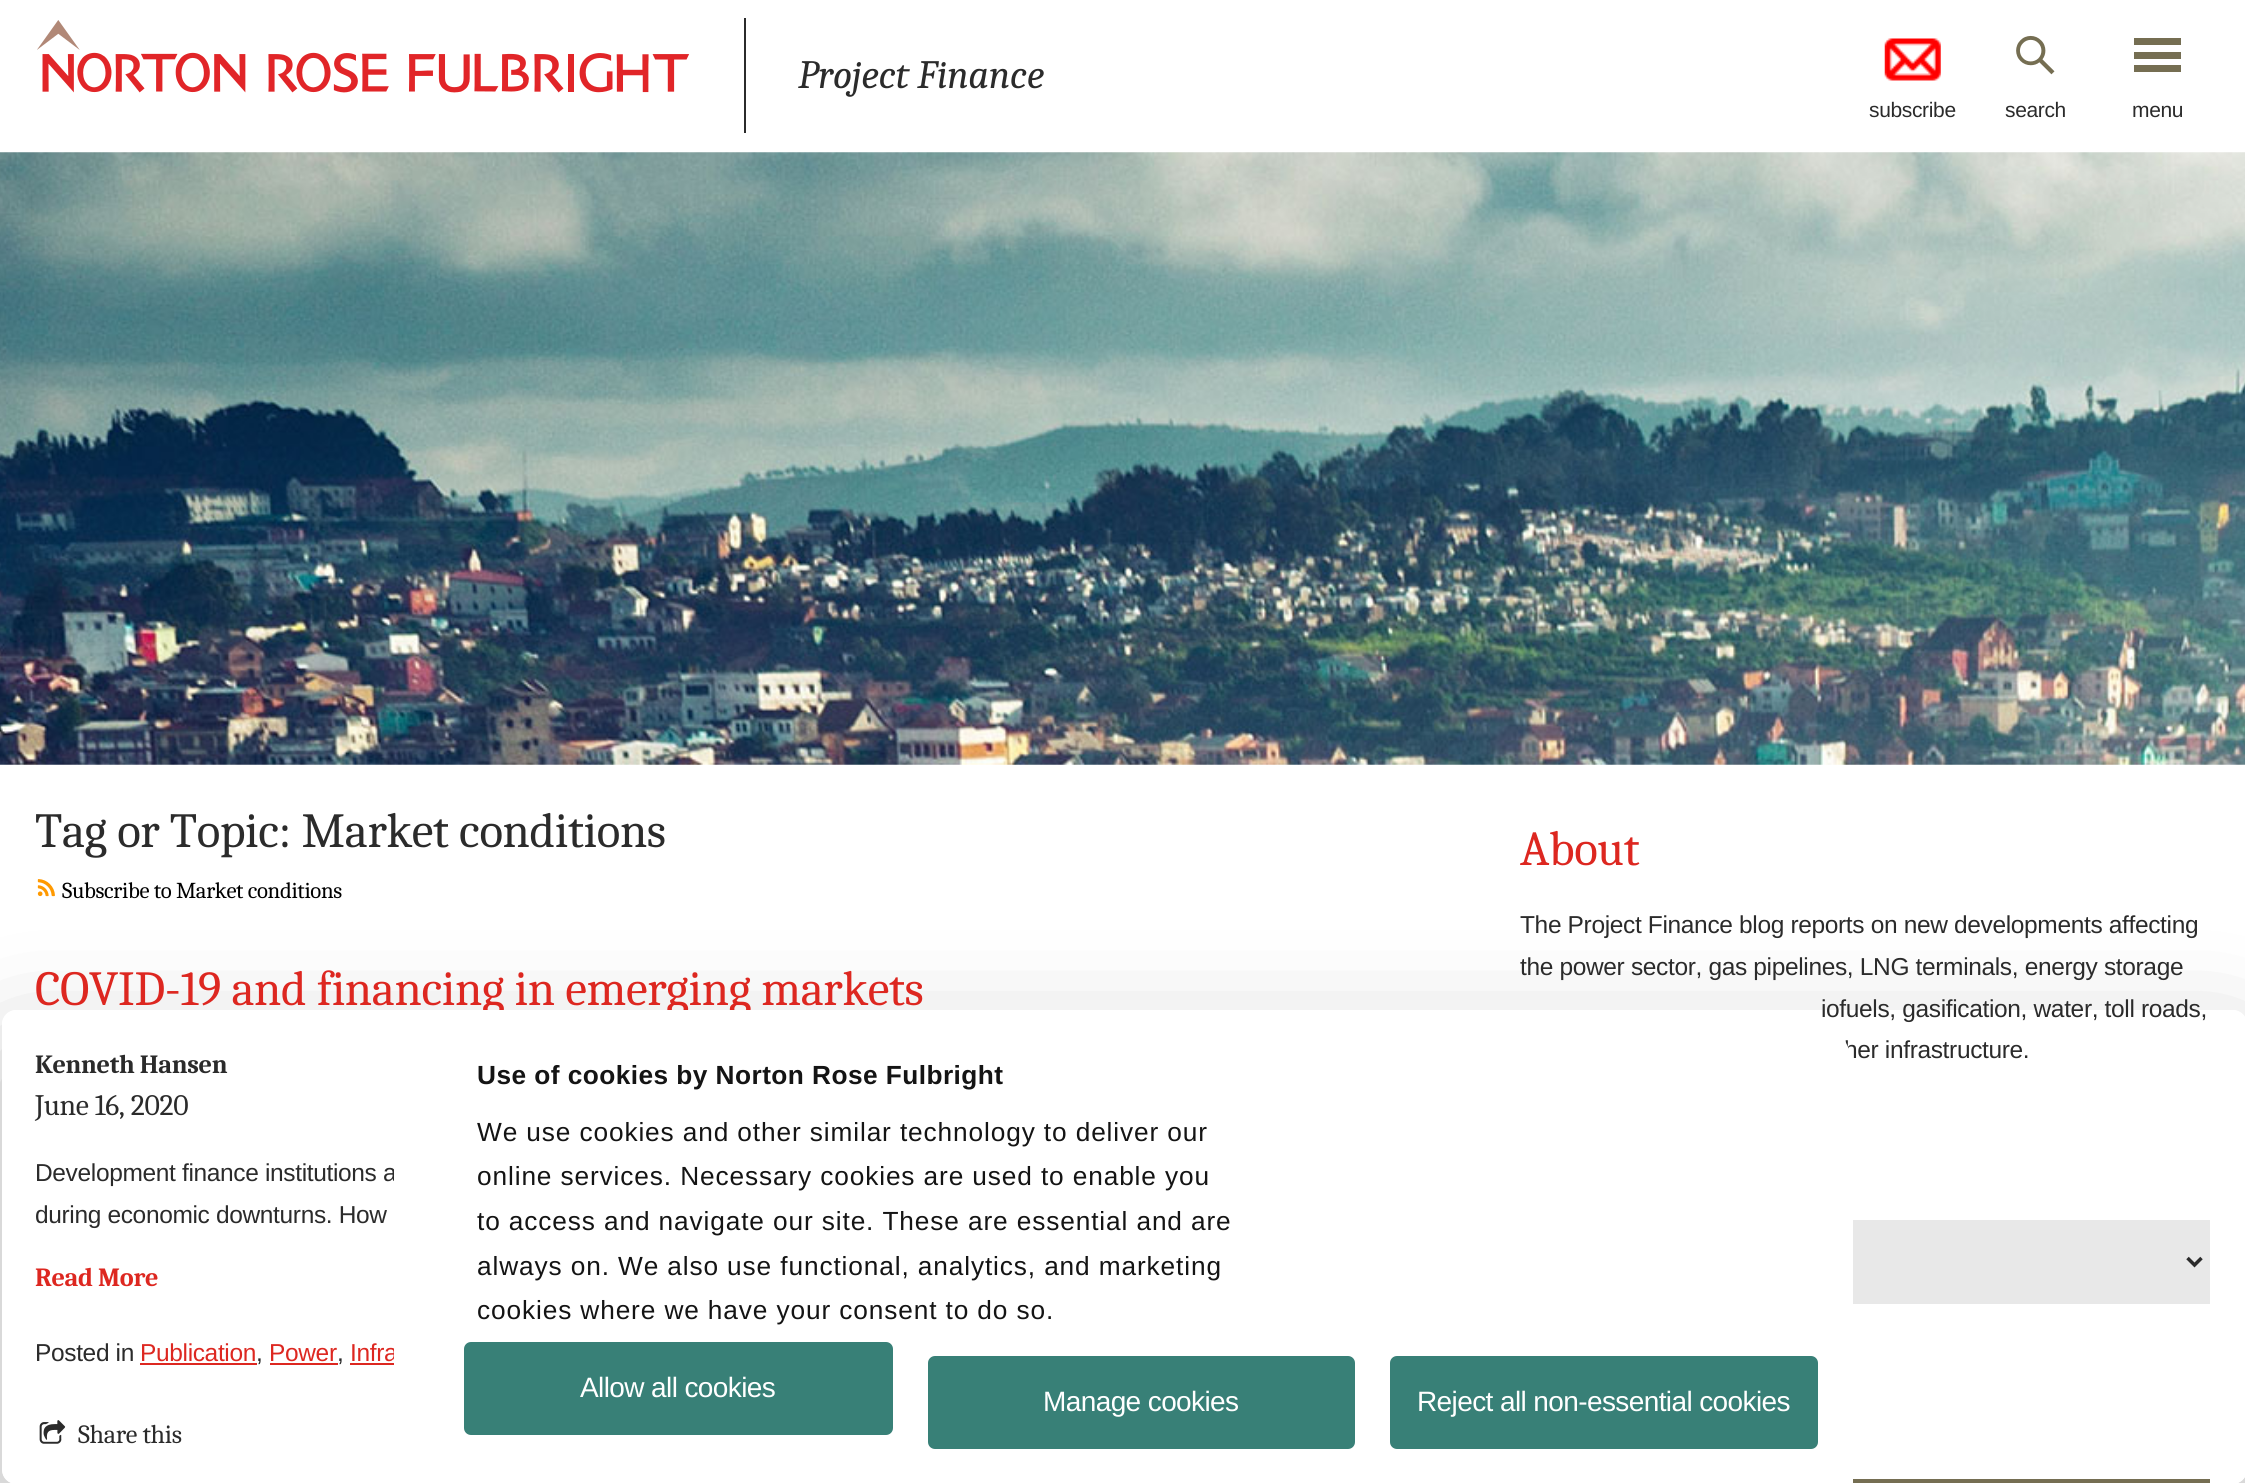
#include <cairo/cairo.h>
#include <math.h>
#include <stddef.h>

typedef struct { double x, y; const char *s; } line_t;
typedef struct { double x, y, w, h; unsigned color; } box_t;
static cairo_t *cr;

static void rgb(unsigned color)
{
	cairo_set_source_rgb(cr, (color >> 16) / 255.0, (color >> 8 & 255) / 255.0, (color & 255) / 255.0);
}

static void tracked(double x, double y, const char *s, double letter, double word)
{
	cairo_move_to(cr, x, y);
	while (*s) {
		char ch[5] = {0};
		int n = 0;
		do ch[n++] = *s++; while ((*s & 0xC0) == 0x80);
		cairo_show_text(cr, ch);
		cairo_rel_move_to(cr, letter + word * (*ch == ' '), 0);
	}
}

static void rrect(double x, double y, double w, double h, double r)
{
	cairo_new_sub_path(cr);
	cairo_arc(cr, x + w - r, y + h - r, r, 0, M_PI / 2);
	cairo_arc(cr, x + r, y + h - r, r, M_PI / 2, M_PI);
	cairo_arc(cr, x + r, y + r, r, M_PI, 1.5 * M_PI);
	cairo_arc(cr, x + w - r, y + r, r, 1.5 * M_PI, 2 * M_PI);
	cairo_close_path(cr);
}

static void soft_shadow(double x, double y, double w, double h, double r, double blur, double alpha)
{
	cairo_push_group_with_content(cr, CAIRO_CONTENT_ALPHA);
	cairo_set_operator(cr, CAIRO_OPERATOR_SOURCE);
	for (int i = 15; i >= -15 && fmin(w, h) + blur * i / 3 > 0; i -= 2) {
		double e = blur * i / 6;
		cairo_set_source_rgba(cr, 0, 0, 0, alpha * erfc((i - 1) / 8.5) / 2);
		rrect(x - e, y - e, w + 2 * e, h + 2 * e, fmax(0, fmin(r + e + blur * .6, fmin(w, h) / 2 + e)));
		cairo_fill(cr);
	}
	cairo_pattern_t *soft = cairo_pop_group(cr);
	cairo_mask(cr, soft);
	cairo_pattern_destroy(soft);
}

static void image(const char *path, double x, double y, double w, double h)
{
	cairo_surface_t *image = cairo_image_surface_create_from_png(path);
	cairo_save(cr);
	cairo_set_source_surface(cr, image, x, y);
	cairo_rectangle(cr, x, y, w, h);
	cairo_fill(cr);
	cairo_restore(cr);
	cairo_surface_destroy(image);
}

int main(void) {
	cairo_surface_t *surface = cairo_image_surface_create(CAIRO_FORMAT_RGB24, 2245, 1483);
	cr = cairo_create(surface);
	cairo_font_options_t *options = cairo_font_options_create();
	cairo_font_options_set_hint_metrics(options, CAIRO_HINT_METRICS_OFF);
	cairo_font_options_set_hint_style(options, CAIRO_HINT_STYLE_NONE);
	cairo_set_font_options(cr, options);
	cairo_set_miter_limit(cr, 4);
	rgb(0xffffff);
	cairo_paint(cr);
	image("img/1.png", 37, 20, 653, 73);
	rgb(0x2b2b2b);
	cairo_rectangle(cr, 744, 18, 2, 115);
	cairo_fill(cr);
	image("img/2.png", 1884, 38, 57, 43);
	image("img/3.png", 2016, 35, 39, 40);
	rgb(0x756e52);
	cairo_new_path(cr);
	cairo_move_to(cr, 2181, 45);
	cairo_line_to(cr, 2134, 45);
	cairo_line_to(cr, 2134, 38);
	cairo_line_to(cr, 2181, 38);
	cairo_close_path(cr);
	cairo_move_to(cr, 2181, 52);
	cairo_line_to(cr, 2134, 52);
	cairo_line_to(cr, 2134, 59);
	cairo_line_to(cr, 2181, 59);
	cairo_close_path(cr);
	cairo_move_to(cr, 2181, 65);
	cairo_line_to(cr, 2134, 65);
	cairo_line_to(cr, 2134, 72);
	cairo_line_to(cr, 2181, 72);
	cairo_close_path(cr);
	cairo_fill(cr);
	image("img/4.png", 0, 152, 2245, 613);
	image("img/5.png", 37, 879, 18, 18);
	{
		static const box_t items[] = {
			{140, 1363, 117, 2, 0xdd2720},
			{270, 1363, 68, 2, 0xdd2720},
			{350, 1363, 44, 2, 0xdd2720},
		};
		for (size_t i = 0; i < sizeof items / sizeof *items; i++) {
			rgb(items[i].color);
			cairo_rectangle(cr, items[i].x, items[i].y, items[i].w, items[i].h);
			cairo_fill(cr);
		}
	}
	image("img/6.png", 39, 1420, 27, 24);
	rgb(0xe8e8e8);
	cairo_rectangle(cr, 1853, 1220, 357, 84);
	cairo_fill(cr);
	cairo_new_path(cr);
	cairo_move_to(cr, 2187.5, 1258);
	cairo_line_to(cr, 2194.5, 1265);
	cairo_line_to(cr, 2201.5, 1258);
	rgb(0x2b2b2b);
	cairo_set_line_width(cr, 3.5);
	cairo_stroke(cr);
	rgb(0x756e52);
	cairo_rectangle(cr, 1853, 1479, 357, 4);
	cairo_fill(cr);
	cairo_save(cr);
	cairo_set_fill_rule(cr, CAIRO_FILL_RULE_EVEN_ODD);
	cairo_new_path(cr);
	cairo_move_to(cr, 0, 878);
	cairo_line_to(cr, 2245, 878);
	cairo_line_to(cr, 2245, 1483);
	cairo_line_to(cr, 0, 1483);
	cairo_close_path(cr);
	cairo_move_to(cr, 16, 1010);
	cairo_line_to(cr, 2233, 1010);
	cairo_curve_to(cr, 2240.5, 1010, 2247, 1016.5, 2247, 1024);
	cairo_line_to(cr, 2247, 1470);
	cairo_curve_to(cr, 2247, 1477.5, 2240.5, 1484, 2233, 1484);
	cairo_line_to(cr, 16, 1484);
	cairo_curve_to(cr, 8.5, 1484, 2, 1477.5, 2, 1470);
	cairo_line_to(cr, 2, 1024);
	cairo_curve_to(cr, 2, 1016.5, 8.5, 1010, 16, 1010);
	cairo_close_path(cr);
	cairo_clip(cr);
	rgb(0x000000);
	soft_shadow(2, 1062, 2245, 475, 14, 61, 0.3);
	cairo_restore(cr);
	cairo_select_font_face(cr, "Caladea", CAIRO_FONT_SLANT_ITALIC, CAIRO_FONT_WEIGHT_NORMAL);
	cairo_set_font_size(cr, 40.25);
	rgb(0x2b2b2b);
	tracked(798, 88, "Project Finance", -0.35, 0);
	cairo_select_font_face(cr, "Liberation Sans", CAIRO_FONT_SLANT_NORMAL, CAIRO_FONT_WEIGHT_NORMAL);
	cairo_set_font_size(cr, 21);
	{
		static const line_t items[] = {
			{1869, 117, "subscribe"},
			{2005, 117, "search"},
			{2132, 117, "menu"},
		};
		for (size_t i = 0; i < sizeof items / sizeof *items; i++) {
			tracked(items[i].x, items[i].y, items[i].s, -0.35, 0);
		}
	}
	cairo_select_font_face(cr, "Caladea", CAIRO_FONT_SLANT_NORMAL, CAIRO_FONT_WEIGHT_NORMAL);
	cairo_set_font_size(cr, 49);
	tracked(35, 847, "Tag or Topic: Market conditions", -0.35, 0);
	cairo_set_font_size(cr, 22.75);
	rgb(0x000000);
	tracked(62, 898, "Subscribe to Market conditions", -0.35, 0);
	cairo_set_font_size(cr, 49);
	rgb(0xdd2720);
	tracked(35, 1005, "COVID-19 and financing in emerging markets", -0.35, 0);
	cairo_select_font_face(cr, "Caladea", CAIRO_FONT_SLANT_NORMAL, CAIRO_FONT_WEIGHT_BOLD);
	cairo_set_font_size(cr, 26.25);
	rgb(0x2b2b2b);
	tracked(35, 1073, "Kenneth Hansen", -0.35, 0);
	cairo_select_font_face(cr, "Caladea", CAIRO_FONT_SLANT_NORMAL, CAIRO_FONT_WEIGHT_NORMAL);
	cairo_set_font_size(cr, 29.75);
	tracked(35, 1115, "June 16, 2020", -0.35, 0);
	cairo_select_font_face(cr, "Liberation Sans", CAIRO_FONT_SLANT_NORMAL, CAIRO_FONT_WEIGHT_NORMAL);
	cairo_set_font_size(cr, 24.5);
	tracked(35, 1181, "Development finance institutions a", -0.35, 0);
	tracked(35, 1223, "during economic downturns. How", -0.35, 0);
	cairo_select_font_face(cr, "Caladea", CAIRO_FONT_SLANT_NORMAL, CAIRO_FONT_WEIGHT_BOLD);
	cairo_set_font_size(cr, 26.25);
	rgb(0xdd2720);
	tracked(35, 1286, "Read More", -0.35, 0);
	cairo_select_font_face(cr, "Liberation Sans", CAIRO_FONT_SLANT_NORMAL, CAIRO_FONT_WEIGHT_NORMAL);
	cairo_set_font_size(cr, 24.5);
	rgb(0x2b2b2b);
	tracked(35, 1361, "Posted in", -0.35, 0);
	rgb(0xdd2720);
	tracked(140, 1361, "Publication", -0.35, 0);
	rgb(0x2b2b2b);
	tracked(256, 1361, ",", -0.35, 0);
	rgb(0xdd2720);
	tracked(269, 1361, "Power", -0.35, 0);
	rgb(0x2b2b2b);
	tracked(337, 1361, ",", -0.35, 0);
	rgb(0xdd2720);
	tracked(350, 1361, "Infra", -0.35, 0);
	cairo_select_font_face(cr, "Caladea", CAIRO_FONT_SLANT_NORMAL, CAIRO_FONT_WEIGHT_NORMAL);
	cairo_set_font_size(cr, 26.25);
	rgb(0x2b2b2b);
	tracked(78, 1443, "Share this", -0.35, 0);
	cairo_set_font_size(cr, 49);
	rgb(0xdd2720);
	tracked(1520, 865, "About", -0.35, 0);
	cairo_select_font_face(cr, "Liberation Sans", CAIRO_FONT_SLANT_NORMAL, CAIRO_FONT_WEIGHT_NORMAL);
	cairo_set_font_size(cr, 24.5);
	rgb(0x2b2b2b);
	{
		static const line_t items[] = {
			{1520, 933, "The Project Finance blog reports on new developments affecting"},
			{1520, 975, "the power sector, gas pipelines, LNG terminals, energy storage"},
			{1821, 1017, "iofuels, gasification, water, toll roads,"},
			{1844, 1058, "her infrastructure."},
		};
		for (size_t i = 0; i < sizeof items / sizeof *items; i++) {
			tracked(items[i].x, items[i].y, items[i].s, -0.35, 0);
		}
	}
	rgb(0xffffff);
	cairo_new_path(cr);
	cairo_move_to(cr, 455, 1010);
	cairo_line_to(cr, 1792, 1010);
	cairo_curve_to(cr, 1825.5, 1010, 1853, 1037.5, 1853, 1071);
	cairo_line_to(cr, 1853, 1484);
	cairo_line_to(cr, 394, 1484);
	cairo_line_to(cr, 394, 1071);
	cairo_curve_to(cr, 394, 1037.5, 421.5, 1010, 455, 1010);
	cairo_close_path(cr);
	cairo_fill(cr);
	cairo_select_font_face(cr, "Liberation Sans", CAIRO_FONT_SLANT_NORMAL, CAIRO_FONT_WEIGHT_BOLD);
	cairo_set_font_size(cr, 26.25);
	rgb(0x141414);
	tracked(477, 1084, "Use of cookies by Norton Rose Fulbright", 0.45, 0);
	cairo_select_font_face(cr, "Liberation Sans", CAIRO_FONT_SLANT_NORMAL, CAIRO_FONT_WEIGHT_NORMAL);
	{
		static const line_t items[] = {
			{477, 1141, "We use cookies and other similar technology to deliver our"},
			{477, 1185, "online services. Necessary cookies are used to enable you"},
			{477, 1230, "to access and navigate our site. These are essential and are"},
			{477, 1275, "always on. We also use functional, analytics, and marketing"},
			{477, 1319, "cookies where we have your consent to do so."},
		};
		for (size_t i = 0; i < sizeof items / sizeof *items; i++) {
			tracked(items[i].x, items[i].y, items[i].s, 0.88, 0);
		}
	}
	rgb(0x388077);
	rrect(464, 1342, 429, 93, 7);
	cairo_fill(cr);
	cairo_set_font_size(cr, 28);
	rgb(0xffffff);
	tracked(580, 1397, "Allow all cookies", -0.6, 0);
	rgb(0x388077);
	rrect(928, 1356, 427, 93, 7);
	cairo_fill(cr);
	rgb(0xffffff);
	tracked(1043, 1411, "Manage cookies", -0.6, 0);
	rgb(0x388077);
	rrect(1390, 1356, 428, 93, 7);
	cairo_fill(cr);
	rgb(0xffffff);
	tracked(1417, 1411, "Reject all non-essential cookies", -0.6, 0);
	cairo_surface_write_to_png(surface, "page.png");
	cairo_font_options_destroy(options);
	cairo_destroy(cr);
	cairo_surface_destroy(surface);
	return 0;
}
